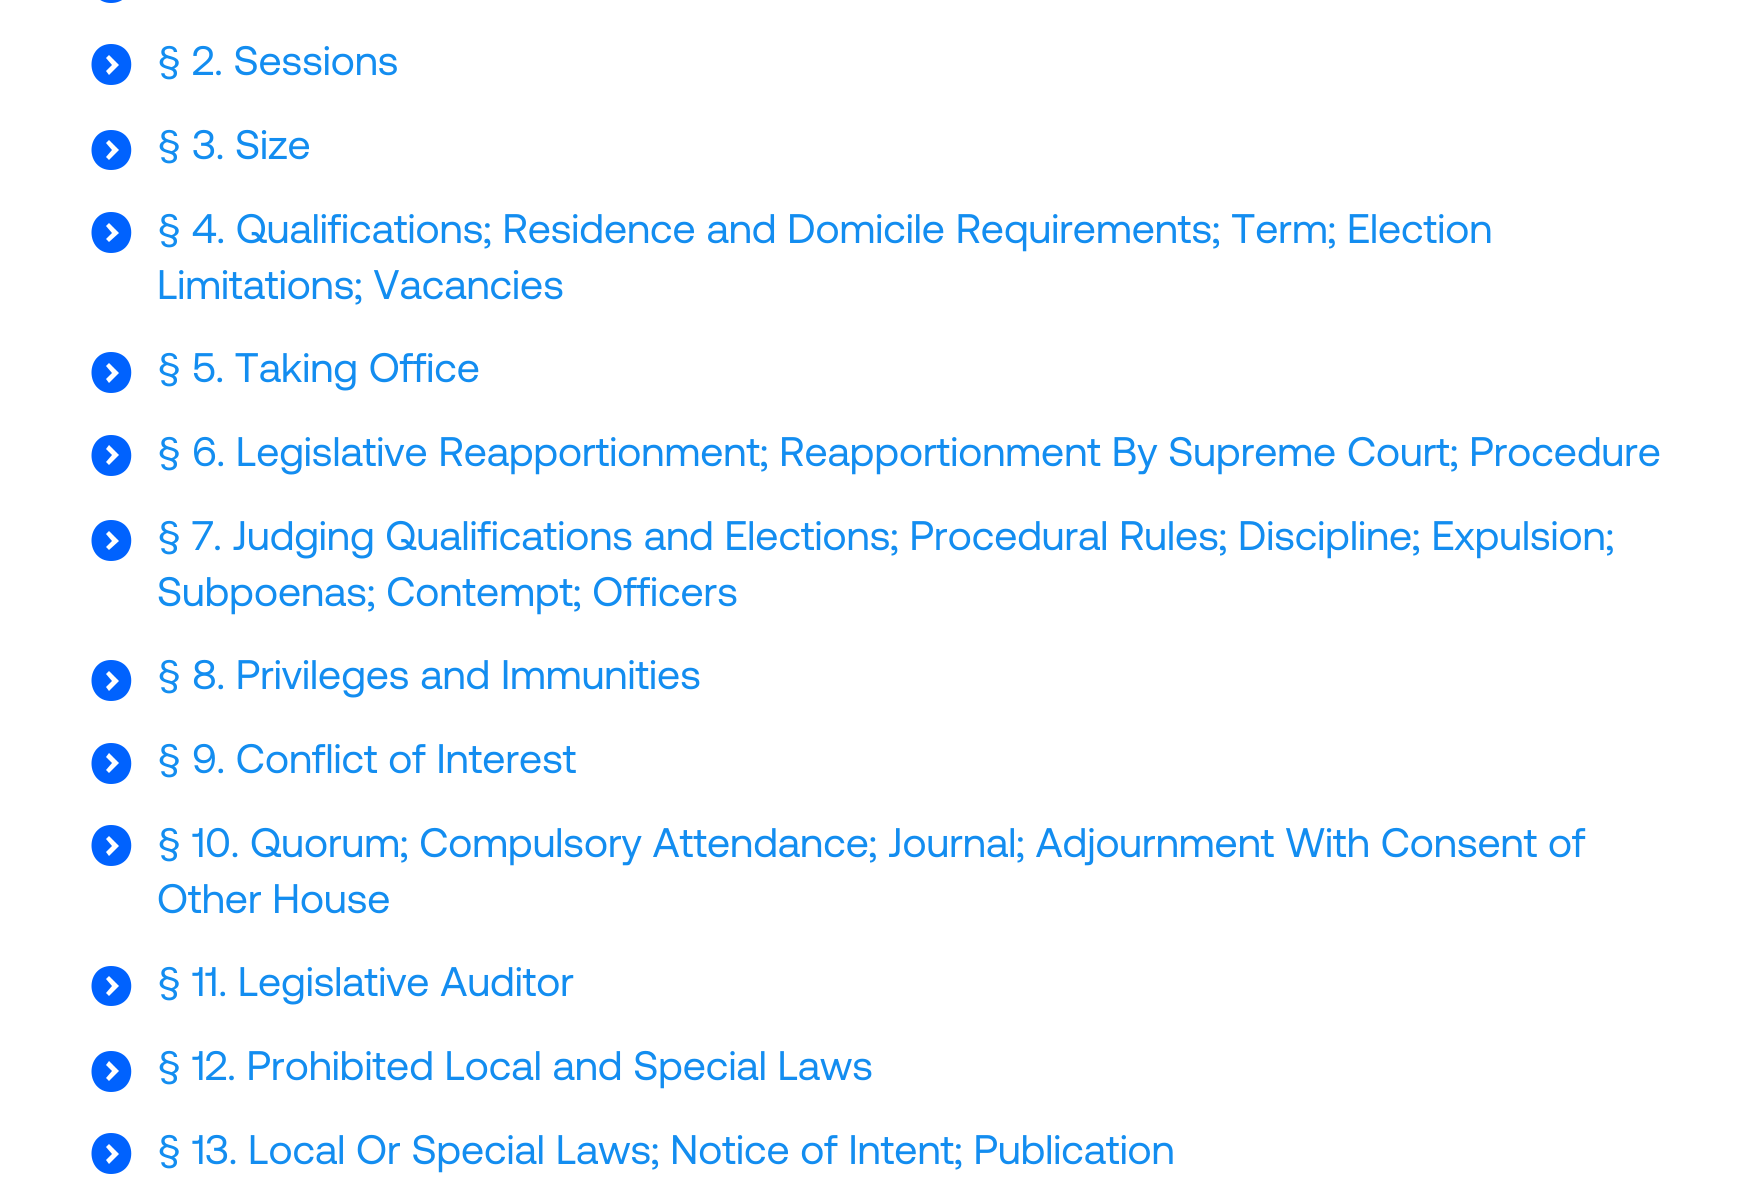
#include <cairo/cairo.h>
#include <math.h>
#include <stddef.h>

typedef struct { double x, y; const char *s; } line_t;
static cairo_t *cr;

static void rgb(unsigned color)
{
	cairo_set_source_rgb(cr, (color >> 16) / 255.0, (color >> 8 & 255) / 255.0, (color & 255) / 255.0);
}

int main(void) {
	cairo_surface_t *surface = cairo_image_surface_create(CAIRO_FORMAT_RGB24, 1749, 1177);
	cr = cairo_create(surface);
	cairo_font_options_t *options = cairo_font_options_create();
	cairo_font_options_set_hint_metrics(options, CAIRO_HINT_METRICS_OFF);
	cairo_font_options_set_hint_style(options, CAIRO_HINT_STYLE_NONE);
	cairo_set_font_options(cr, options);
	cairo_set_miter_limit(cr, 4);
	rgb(0xffffff);
	cairo_paint(cr);
	rgb(0x0062fe);
	cairo_new_path(cr);
	cairo_move_to(cr, 111, -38);
	cairo_curve_to(cr, 138, -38, 138, 3, 111, 3);
	cairo_curve_to(cr, 85, 3, 85, -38, 111, -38);
	cairo_close_path(cr);
	cairo_move_to(cr, 109, -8);
	cairo_line_to(cr, 119, -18);
	cairo_line_to(cr, 109, -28);
	cairo_line_to(cr, 106, -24);
	cairo_line_to(cr, 112, -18);
	cairo_line_to(cr, 106, -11);
	cairo_close_path(cr);
	cairo_fill(cr);
	cairo_new_path(cr);
	cairo_move_to(cr, 111, 44);
	cairo_curve_to(cr, 138, 44, 138, 85, 111, 85);
	cairo_curve_to(cr, 85, 85, 85, 44, 111, 44);
	cairo_close_path(cr);
	cairo_move_to(cr, 109, 75);
	cairo_line_to(cr, 119, 65);
	cairo_line_to(cr, 109, 55);
	cairo_line_to(cr, 106, 58);
	cairo_line_to(cr, 112, 65);
	cairo_line_to(cr, 106, 71);
	cairo_close_path(cr);
	cairo_fill(cr);
	cairo_new_path(cr);
	cairo_move_to(cr, 111, 130);
	cairo_curve_to(cr, 138, 130, 138, 170, 111, 170);
	cairo_curve_to(cr, 85, 170, 85, 130, 111, 130);
	cairo_close_path(cr);
	cairo_move_to(cr, 109, 160);
	cairo_line_to(cr, 119, 150);
	cairo_line_to(cr, 109, 140);
	cairo_line_to(cr, 106, 143);
	cairo_line_to(cr, 112, 150);
	cairo_line_to(cr, 106, 157);
	cairo_close_path(cr);
	cairo_fill(cr);
	cairo_new_path(cr);
	cairo_move_to(cr, 111, 212);
	cairo_curve_to(cr, 138, 212, 138, 253, 111, 253);
	cairo_curve_to(cr, 85, 253, 85, 212, 111, 212);
	cairo_close_path(cr);
	cairo_move_to(cr, 109, 242);
	cairo_line_to(cr, 119, 233);
	cairo_line_to(cr, 109, 223);
	cairo_line_to(cr, 106, 226);
	cairo_line_to(cr, 112, 233);
	cairo_line_to(cr, 106, 239);
	cairo_close_path(cr);
	cairo_fill(cr);
	cairo_new_path(cr);
	cairo_move_to(cr, 111, 352);
	cairo_curve_to(cr, 138, 352, 138, 393, 111, 393);
	cairo_curve_to(cr, 85, 393, 85, 352, 111, 352);
	cairo_close_path(cr);
	cairo_move_to(cr, 109, 383);
	cairo_line_to(cr, 119, 373);
	cairo_line_to(cr, 109, 363);
	cairo_line_to(cr, 106, 366);
	cairo_line_to(cr, 112, 373);
	cairo_line_to(cr, 106, 379);
	cairo_close_path(cr);
	cairo_fill(cr);
	cairo_new_path(cr);
	cairo_move_to(cr, 111, 435);
	cairo_curve_to(cr, 138, 435, 138, 476, 111, 476);
	cairo_curve_to(cr, 85, 476, 85, 435, 111, 435);
	cairo_close_path(cr);
	cairo_move_to(cr, 109, 465);
	cairo_line_to(cr, 119, 455);
	cairo_line_to(cr, 109, 445);
	cairo_line_to(cr, 106, 449);
	cairo_line_to(cr, 112, 455);
	cairo_line_to(cr, 106, 462);
	cairo_close_path(cr);
	cairo_fill(cr);
	cairo_new_path(cr);
	cairo_move_to(cr, 111, 520);
	cairo_curve_to(cr, 138, 520, 138, 561, 111, 561);
	cairo_curve_to(cr, 85, 561, 85, 520, 111, 520);
	cairo_close_path(cr);
	cairo_move_to(cr, 109, 550);
	cairo_line_to(cr, 119, 541);
	cairo_line_to(cr, 109, 531);
	cairo_line_to(cr, 106, 534);
	cairo_line_to(cr, 112, 541);
	cairo_line_to(cr, 106, 547);
	cairo_close_path(cr);
	cairo_fill(cr);
	cairo_new_path(cr);
	cairo_move_to(cr, 111, 660);
	cairo_curve_to(cr, 138, 660, 138, 701, 111, 701);
	cairo_curve_to(cr, 85, 701, 85, 660, 111, 660);
	cairo_close_path(cr);
	cairo_move_to(cr, 109, 691);
	cairo_line_to(cr, 119, 681);
	cairo_line_to(cr, 109, 671);
	cairo_line_to(cr, 106, 674);
	cairo_line_to(cr, 112, 681);
	cairo_line_to(cr, 106, 687);
	cairo_close_path(cr);
	cairo_fill(cr);
	cairo_new_path(cr);
	cairo_move_to(cr, 111, 743);
	cairo_curve_to(cr, 138, 743, 138, 784, 111, 784);
	cairo_curve_to(cr, 85, 784, 85, 743, 111, 743);
	cairo_close_path(cr);
	cairo_move_to(cr, 109, 773);
	cairo_line_to(cr, 119, 763);
	cairo_line_to(cr, 109, 753);
	cairo_line_to(cr, 106, 757);
	cairo_line_to(cr, 112, 763);
	cairo_line_to(cr, 106, 770);
	cairo_close_path(cr);
	cairo_fill(cr);
	cairo_new_path(cr);
	cairo_move_to(cr, 111, 825);
	cairo_curve_to(cr, 138, 825, 138, 866, 111, 866);
	cairo_curve_to(cr, 85, 866, 85, 825, 111, 825);
	cairo_close_path(cr);
	cairo_move_to(cr, 109, 856);
	cairo_line_to(cr, 119, 846);
	cairo_line_to(cr, 109, 836);
	cairo_line_to(cr, 106, 839);
	cairo_line_to(cr, 112, 846);
	cairo_line_to(cr, 106, 852);
	cairo_close_path(cr);
	cairo_fill(cr);
	cairo_new_path(cr);
	cairo_move_to(cr, 111, 966);
	cairo_curve_to(cr, 138, 966, 138, 1006, 111, 1006);
	cairo_curve_to(cr, 85, 1006, 85, 966, 111, 966);
	cairo_close_path(cr);
	cairo_move_to(cr, 109, 996);
	cairo_line_to(cr, 119, 986);
	cairo_line_to(cr, 109, 976);
	cairo_line_to(cr, 106, 979);
	cairo_line_to(cr, 112, 986);
	cairo_line_to(cr, 106, 993);
	cairo_close_path(cr);
	cairo_fill(cr);
	cairo_new_path(cr);
	cairo_move_to(cr, 111, 1051);
	cairo_curve_to(cr, 138, 1051, 138, 1092, 111, 1092);
	cairo_curve_to(cr, 85, 1092, 85, 1051, 111, 1051);
	cairo_close_path(cr);
	cairo_move_to(cr, 109, 1081);
	cairo_line_to(cr, 119, 1071);
	cairo_line_to(cr, 109, 1061);
	cairo_line_to(cr, 106, 1065);
	cairo_line_to(cr, 112, 1071);
	cairo_line_to(cr, 106, 1078);
	cairo_close_path(cr);
	cairo_fill(cr);
	cairo_new_path(cr);
	cairo_move_to(cr, 111, 1133);
	cairo_curve_to(cr, 138, 1133, 138, 1174, 111, 1174);
	cairo_curve_to(cr, 85, 1174, 85, 1133, 111, 1133);
	cairo_close_path(cr);
	cairo_move_to(cr, 109, 1164);
	cairo_line_to(cr, 119, 1154);
	cairo_line_to(cr, 109, 1144);
	cairo_line_to(cr, 106, 1147);
	cairo_line_to(cr, 112, 1154);
	cairo_line_to(cr, 106, 1160);
	cairo_close_path(cr);
	cairo_fill(cr);
	cairo_select_font_face(cr, "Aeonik", CAIRO_FONT_SLANT_NORMAL, CAIRO_FONT_WEIGHT_NORMAL);
	cairo_set_font_size(cr, 41.25);
	rgb(0x138df0);
	{
		static const line_t items[] = {
			{157, 75, "§ 2. Sessions"},
			{157, 159, "§ 3. Size"},
			{157, 243, "§ 4. Qualifications; Residence and Domicile Requirements; Term; Election"},
			{157, 299, "Limitations; Vacancies"},
			{157, 382, "§ 5. Taking Office"},
			{157, 466, "§ 6. Legislative Reapportionment; Reapportionment By Supreme Court; Procedure"},
			{157, 550, "§ 7. Judging Qualifications and Elections; Procedural Rules; Discipline; Expulsion;"},
			{157, 606, "Subpoenas; Contempt; Officers"},
			{157, 689, "§ 8. Privileges and Immunities"},
			{157, 773, "§ 9. Conflict of Interest"},
			{157, 857, "§ 10. Quorum; Compulsory Attendance; Journal; Adjournment With Consent of"},
			{157, 913, "Other House"},
			{157, 996, "§ 11. Legislative Auditor"},
			{157, 1080, "§ 12. Prohibited Local and Special Laws"},
			{157, 1164, "§ 13. Local Or Special Laws; Notice of Intent; Publication"},
		};
		for (size_t i = 0; i < sizeof items / sizeof *items; i++) {
			cairo_move_to(cr, items[i].x, items[i].y);
			cairo_show_text(cr, items[i].s);
		}
	}
	cairo_surface_write_to_png(surface, "page.png");
	cairo_font_options_destroy(options);
	cairo_destroy(cr);
	cairo_surface_destroy(surface);
	return 0;
}
